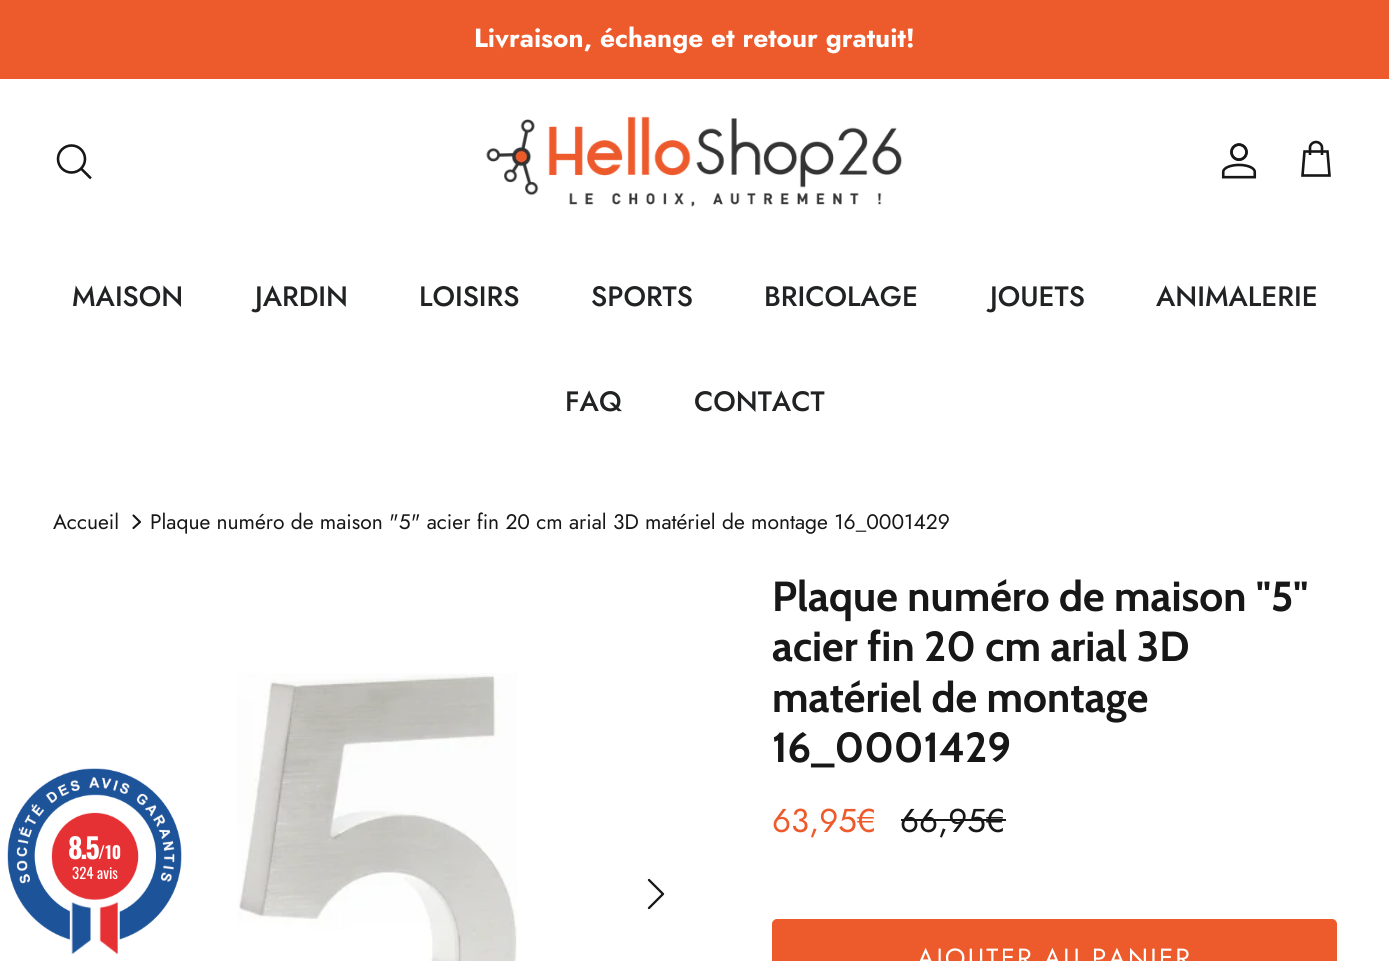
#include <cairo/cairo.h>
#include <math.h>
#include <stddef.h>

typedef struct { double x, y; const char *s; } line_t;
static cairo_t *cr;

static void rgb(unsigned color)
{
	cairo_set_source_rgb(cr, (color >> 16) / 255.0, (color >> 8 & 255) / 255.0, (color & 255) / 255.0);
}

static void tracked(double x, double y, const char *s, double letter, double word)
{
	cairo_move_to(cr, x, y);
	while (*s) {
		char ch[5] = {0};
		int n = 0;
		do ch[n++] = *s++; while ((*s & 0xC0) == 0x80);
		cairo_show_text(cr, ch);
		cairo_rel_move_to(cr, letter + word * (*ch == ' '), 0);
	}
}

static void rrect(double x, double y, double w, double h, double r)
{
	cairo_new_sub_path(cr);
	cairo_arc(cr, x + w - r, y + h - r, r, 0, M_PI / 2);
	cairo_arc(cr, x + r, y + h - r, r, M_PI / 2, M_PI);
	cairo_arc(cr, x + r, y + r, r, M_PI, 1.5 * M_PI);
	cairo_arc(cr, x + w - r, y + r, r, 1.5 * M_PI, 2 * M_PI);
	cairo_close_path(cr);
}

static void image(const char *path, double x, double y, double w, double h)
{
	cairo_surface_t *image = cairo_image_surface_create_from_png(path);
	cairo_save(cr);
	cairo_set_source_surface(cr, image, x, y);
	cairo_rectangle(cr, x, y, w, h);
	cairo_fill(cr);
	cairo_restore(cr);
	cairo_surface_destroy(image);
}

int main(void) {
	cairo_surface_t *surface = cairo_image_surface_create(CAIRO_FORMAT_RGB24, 1389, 961);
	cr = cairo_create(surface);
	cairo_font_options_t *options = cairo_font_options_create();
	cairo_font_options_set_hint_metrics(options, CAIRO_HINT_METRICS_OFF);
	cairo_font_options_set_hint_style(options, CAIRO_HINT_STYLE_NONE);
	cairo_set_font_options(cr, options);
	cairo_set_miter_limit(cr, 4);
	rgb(0xffffff);
	cairo_paint(cr);
	rgb(0xed5a2b);
	cairo_rectangle(cr, 0, 0, 1389, 79);
	cairo_fill(cr);
	cairo_arc(cr, 71.5, 159, 13.5, 0, 2 * M_PI);
	rgb(0x171717);
	cairo_set_line_width(cr, 2.6);
	cairo_stroke(cr);
	cairo_new_path(cr);
	cairo_move_to(cr, 82, 169.5);
	cairo_line_to(cr, 90, 177.5);
	cairo_set_line_cap(cr, CAIRO_LINE_CAP_SQUARE);
	cairo_stroke(cr);
	image("img/1.png", 486, 116, 416, 91);
	image("img/2.png", 1221, 143, 36, 36);
	cairo_new_path(cr);
	cairo_move_to(cr, 1322, 155);
	cairo_line_to(cr, 1322, 147.5);
	cairo_curve_to(cr, 1322, 144.5, 1319, 142, 1316, 142);
	cairo_curve_to(cr, 1313, 142, 1310, 144.5, 1310, 147.5);
	cairo_line_to(cr, 1310, 155);
	cairo_move_to(cr, 1304.5, 151.5);
	cairo_line_to(cr, 1327.5, 151.5);
	cairo_line_to(cr, 1329.5, 175.5);
	cairo_line_to(cr, 1302.5, 175.5);
	cairo_close_path(cr);
	cairo_set_line_cap(cr, CAIRO_LINE_CAP_BUTT);
	cairo_stroke(cr);
	cairo_new_path(cr);
	cairo_move_to(cr, 133.5, 528);
	cairo_line_to(cr, 140, 522);
	cairo_line_to(cr, 133.5, 515.5);
	cairo_set_line_width(cr, 2.1);
	cairo_set_line_cap(cr, CAIRO_LINE_CAP_ROUND);
	cairo_set_line_join(cr, CAIRO_LINE_JOIN_ROUND);
	cairo_stroke(cr);
	image("img/3.png", 237, 673, 280, 288);
	cairo_new_path(cr);
	cairo_move_to(cr, 649, 908);
	cairo_line_to(cr, 663, 894);
	cairo_line_to(cr, 649, 880);
	cairo_set_line_width(cr, 2.3);
	cairo_stroke(cr);
	cairo_rectangle(cr, 901, 819, 105, 2);
	cairo_fill(cr);
	rgb(0xed5a2b);
	rrect(773, 920, 563, 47, 4);
	cairo_fill_preserve(cr);
	cairo_set_line_width(cr, 2);
	cairo_set_line_cap(cr, CAIRO_LINE_CAP_BUTT);
	cairo_set_line_join(cr, CAIRO_LINE_JOIN_MITER);
	cairo_stroke(cr);
	image("img/4.png", 7, 768, 175, 187);
	cairo_select_font_face(cr, "Jost", CAIRO_FONT_SLANT_NORMAL, CAIRO_FONT_WEIGHT_BOLD);
	cairo_set_font_size(cr, 26.25);
	rgb(0xffffff);
	cairo_move_to(cr, 474, 47);
	cairo_show_text(cr, "Livraison, échange et retour gratuit!");
	cairo_select_font_face(cr, "Jost Medium", CAIRO_FONT_SLANT_NORMAL, CAIRO_FONT_WEIGHT_NORMAL);
	cairo_set_font_size(cr, 28);
	rgb(0x202223);
	{
		static const line_t items[] = {
			{72, 306, "MAISON"},
			{255, 306, "JARDIN"},
			{419, 306, "LOISIRS"},
			{591, 306, "SPORTS"},
			{764, 306, "BRICOLAGE"},
			{990, 306, "JOUETS"},
			{1156, 306, "ANIMALERIE"},
			{565, 411, "FAQ"},
			{694, 411, "CONTACT"},
		};
		for (size_t i = 0; i < sizeof items / sizeof *items; i++) {
			cairo_move_to(cr, items[i].x, items[i].y);
			cairo_show_text(cr, items[i].s);
		}
	}
	cairo_select_font_face(cr, "Jost", CAIRO_FONT_SLANT_NORMAL, CAIRO_FONT_WEIGHT_NORMAL);
	cairo_set_font_size(cr, 21);
	rgb(0x171717);
	cairo_move_to(cr, 53, 529);
	cairo_show_text(cr, "Accueil");
	cairo_move_to(cr, 150, 529);
	cairo_show_text(cr, "Plaque numéro de maison \"5\" acier fin 20 cm arial 3D matériel de montage 16_0001429");
	cairo_select_font_face(cr, "Cabin", CAIRO_FONT_SLANT_NORMAL, CAIRO_FONT_WEIGHT_BOLD);
	cairo_set_font_size(cr, 42);
	{
		static const line_t items[] = {
			{772, 611, "Plaque numéro de maison \"5\""},
			{772, 661, "acier fin 20 cm arial 3D"},
			{772, 712, "matériel de montage"},
			{772, 762, "16_0001429"},
		};
		for (size_t i = 0; i < sizeof items / sizeof *items; i++) {
			cairo_move_to(cr, items[i].x, items[i].y);
			cairo_show_text(cr, items[i].s);
		}
	}
	cairo_select_font_face(cr, "Jost", CAIRO_FONT_SLANT_NORMAL, CAIRO_FONT_WEIGHT_NORMAL);
	cairo_set_font_size(cr, 33);
	rgb(0xed5a2b);
	cairo_move_to(cr, 772, 832);
	cairo_show_text(cr, "63,95€");
	rgb(0x171717);
	cairo_move_to(cr, 900, 832);
	cairo_show_text(cr, "66,95€");
	cairo_set_font_size(cr, 26.25);
	rgb(0xffffff);
	tracked(917, 967, "AJOUTER AU PANIER", 2.1, 0);
	cairo_select_font_face(cr, "Oswald", CAIRO_FONT_SLANT_NORMAL, CAIRO_FONT_WEIGHT_BOLD);
	cairo_set_font_size(cr, 28);
	tracked(68, 859, "8.5", -2, 0);
	cairo_set_font_size(cr, 17);
	cairo_move_to(cr, 98, 859);
	cairo_show_text(cr, "/10");
	cairo_select_font_face(cr, "Oswald", CAIRO_FONT_SLANT_NORMAL, CAIRO_FONT_WEIGHT_NORMAL);
	cairo_set_font_size(cr, 15);
	cairo_move_to(cr, 72, 879);
	cairo_show_text(cr, "324 avis");
	cairo_surface_write_to_png(surface, "page.png");
	cairo_font_options_destroy(options);
	cairo_destroy(cr);
	cairo_surface_destroy(surface);
	return 0;
}
